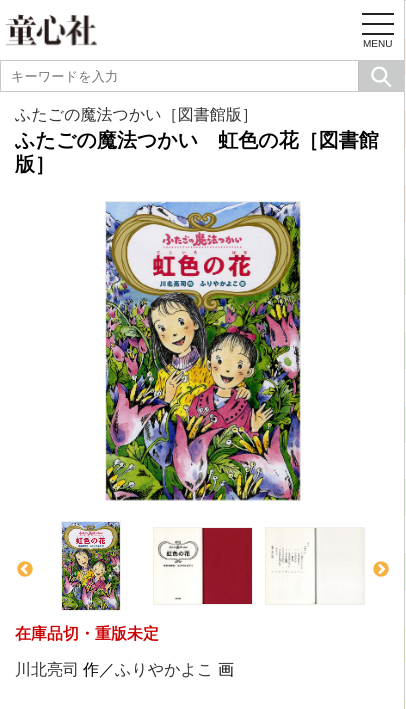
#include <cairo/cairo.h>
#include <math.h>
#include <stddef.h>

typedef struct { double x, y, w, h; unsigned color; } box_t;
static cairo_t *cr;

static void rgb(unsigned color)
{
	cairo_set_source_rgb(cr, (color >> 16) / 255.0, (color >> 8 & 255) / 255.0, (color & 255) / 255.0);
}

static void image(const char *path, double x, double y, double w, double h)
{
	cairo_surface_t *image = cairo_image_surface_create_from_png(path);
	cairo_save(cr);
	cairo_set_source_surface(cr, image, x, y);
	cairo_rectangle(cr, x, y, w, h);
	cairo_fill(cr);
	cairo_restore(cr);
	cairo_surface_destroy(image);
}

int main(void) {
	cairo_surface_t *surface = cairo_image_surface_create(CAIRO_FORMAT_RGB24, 406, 709);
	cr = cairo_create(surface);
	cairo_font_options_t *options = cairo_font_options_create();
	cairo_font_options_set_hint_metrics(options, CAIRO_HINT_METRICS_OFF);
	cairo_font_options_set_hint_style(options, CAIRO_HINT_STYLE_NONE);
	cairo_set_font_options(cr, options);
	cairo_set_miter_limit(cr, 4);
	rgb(0xffffff);
	cairo_paint(cr);
	{
		static const box_t items[] = {
			{362, 23, 32, 2, 0x222222},
			{362, 13, 32, 2, 0x222222},
			{362, 33, 32, 2, 0x222222},
		};
		for (size_t i = 0; i < sizeof items / sizeof *items; i++) {
			rgb(items[i].color);
			cairo_rectangle(cr, items[i].x, items[i].y, items[i].w, items[i].h);
			cairo_fill(cr);
		}
	}
	cairo_rectangle(cr, 0.5, 60.5, 405, 31);
	rgb(0xc9caca);
	cairo_set_line_width(cr, 1);
	cairo_stroke(cr);
	rgb(0xffffff);
	cairo_rectangle(cr, 405, 60, 1, 32);
	cairo_fill(cr);
	cairo_rectangle(cr, 404.5, 0.5, 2, 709);
	rgb(0xcccccc);
	cairo_stroke(cr);
	{
		static const box_t items[] = {
			{405, 38, 1, 37, 0xfdede4},
			{405, 111, 1, 37, 0xfdede4},
			{405, 185, 1, 37, 0xfdede4},
			{405, 259, 1, 36, 0xe6f5e2},
			{405, 332, 1, 37, 0xe6f5e2},
			{405, 406, 1, 37, 0xe6f5e2},
			{405, 479, 1, 37, 0xe6f5e2},
			{405, 553, 1, 37, 0xe6f5e2},
			{405, 627, 1, 36, 0xf5ffcd},
			{405, 700, 1, 9, 0xf5ffcd},
		};
		for (size_t i = 0; i < sizeof items / sizeof *items; i++) {
			rgb(items[i].color);
			cairo_rectangle(cr, items[i].x, items[i].y, items[i].w, items[i].h);
			cairo_fill(cr);
		}
	}
	image("img/1.png", 5, 14, 92, 32);
	image("img/2.png", 358, 61, 46, 31);
	cairo_rectangle(cr, 105.5, 201.5, 195, 299);
	rgb(0xeeeeee);
	cairo_stroke(cr);
	image("img/3.png", 105, 201, 196, 300);
	image("img/4.png", 17, 561, 16, 16);
	cairo_rectangle(cr, 61.5, 521.5, 59, 89);
	cairo_stroke(cr);
	image("img/5.png", 62, 522, 58, 88);
	cairo_rectangle(cr, 153.5, 527.5, 99, 77);
	cairo_stroke(cr);
	image("img/6.png", 154, 528, 98, 76);
	cairo_rectangle(cr, 265.5, 527.5, 99, 77);
	cairo_stroke(cr);
	image("img/7.png", 266, 528, 98, 76);
	image("img/8.png", 373, 561, 16, 16);
	cairo_select_font_face(cr, "Liberation Sans", CAIRO_FONT_SLANT_NORMAL, CAIRO_FONT_WEIGHT_NORMAL);
	cairo_set_font_size(cr, 10);
	rgb(0x222222);
	cairo_move_to(cr, 363, 47);
	cairo_show_text(cr, "MENU");
	cairo_select_font_face(cr, "WenQuanYi Zen Hei Medium", CAIRO_FONT_SLANT_NORMAL, CAIRO_FONT_WEIGHT_NORMAL);
	cairo_set_font_size(cr, 13.25);
	rgb(0x757575);
	cairo_move_to(cr, 11, 81);
	cairo_show_text(cr, "キーワードを入力");
	cairo_save(cr);
	cairo_rectangle(cr, 15, 107, 376, 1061);
	cairo_clip(cr);
	cairo_set_font_size(cr, 16);
	rgb(0x333333);
	cairo_move_to(cr, 15, 120);
	cairo_show_text(cr, "ふたごの魔法つかい［図書館版］");
	cairo_restore(cr);
	cairo_select_font_face(cr, "WenQuanYi Zen Hei", CAIRO_FONT_SLANT_NORMAL, CAIRO_FONT_WEIGHT_BOLD);
	cairo_set_font_size(cr, 20);
	rgb(0x000000);
	cairo_move_to(cr, 15, 147);
	cairo_show_text(cr, "ふたごの魔法つかい　虹色の花［図書館");
	cairo_move_to(cr, 15, 171);
	cairo_show_text(cr, "版］");
	cairo_set_font_size(cr, 16);
	rgb(0xcc0000);
	cairo_move_to(cr, 15, 639);
	cairo_show_text(cr, "在庫品切・重版未定");
	cairo_select_font_face(cr, "WenQuanYi Zen Hei Medium", CAIRO_FONT_SLANT_NORMAL, CAIRO_FONT_WEIGHT_NORMAL);
	rgb(0x333333);
	cairo_move_to(cr, 15, 675);
	cairo_show_text(cr, "川北亮司");
	rgb(0x000000);
	cairo_move_to(cr, 83, 675);
	cairo_show_text(cr, "作／");
	rgb(0x333333);
	cairo_move_to(cr, 115, 675);
	cairo_show_text(cr, "ふりやかよこ");
	rgb(0x000000);
	cairo_move_to(cr, 218, 675);
	cairo_show_text(cr, "画");
	cairo_surface_write_to_png(surface, "page.png");
	cairo_font_options_destroy(options);
	cairo_destroy(cr);
	cairo_surface_destroy(surface);
	return 0;
}
